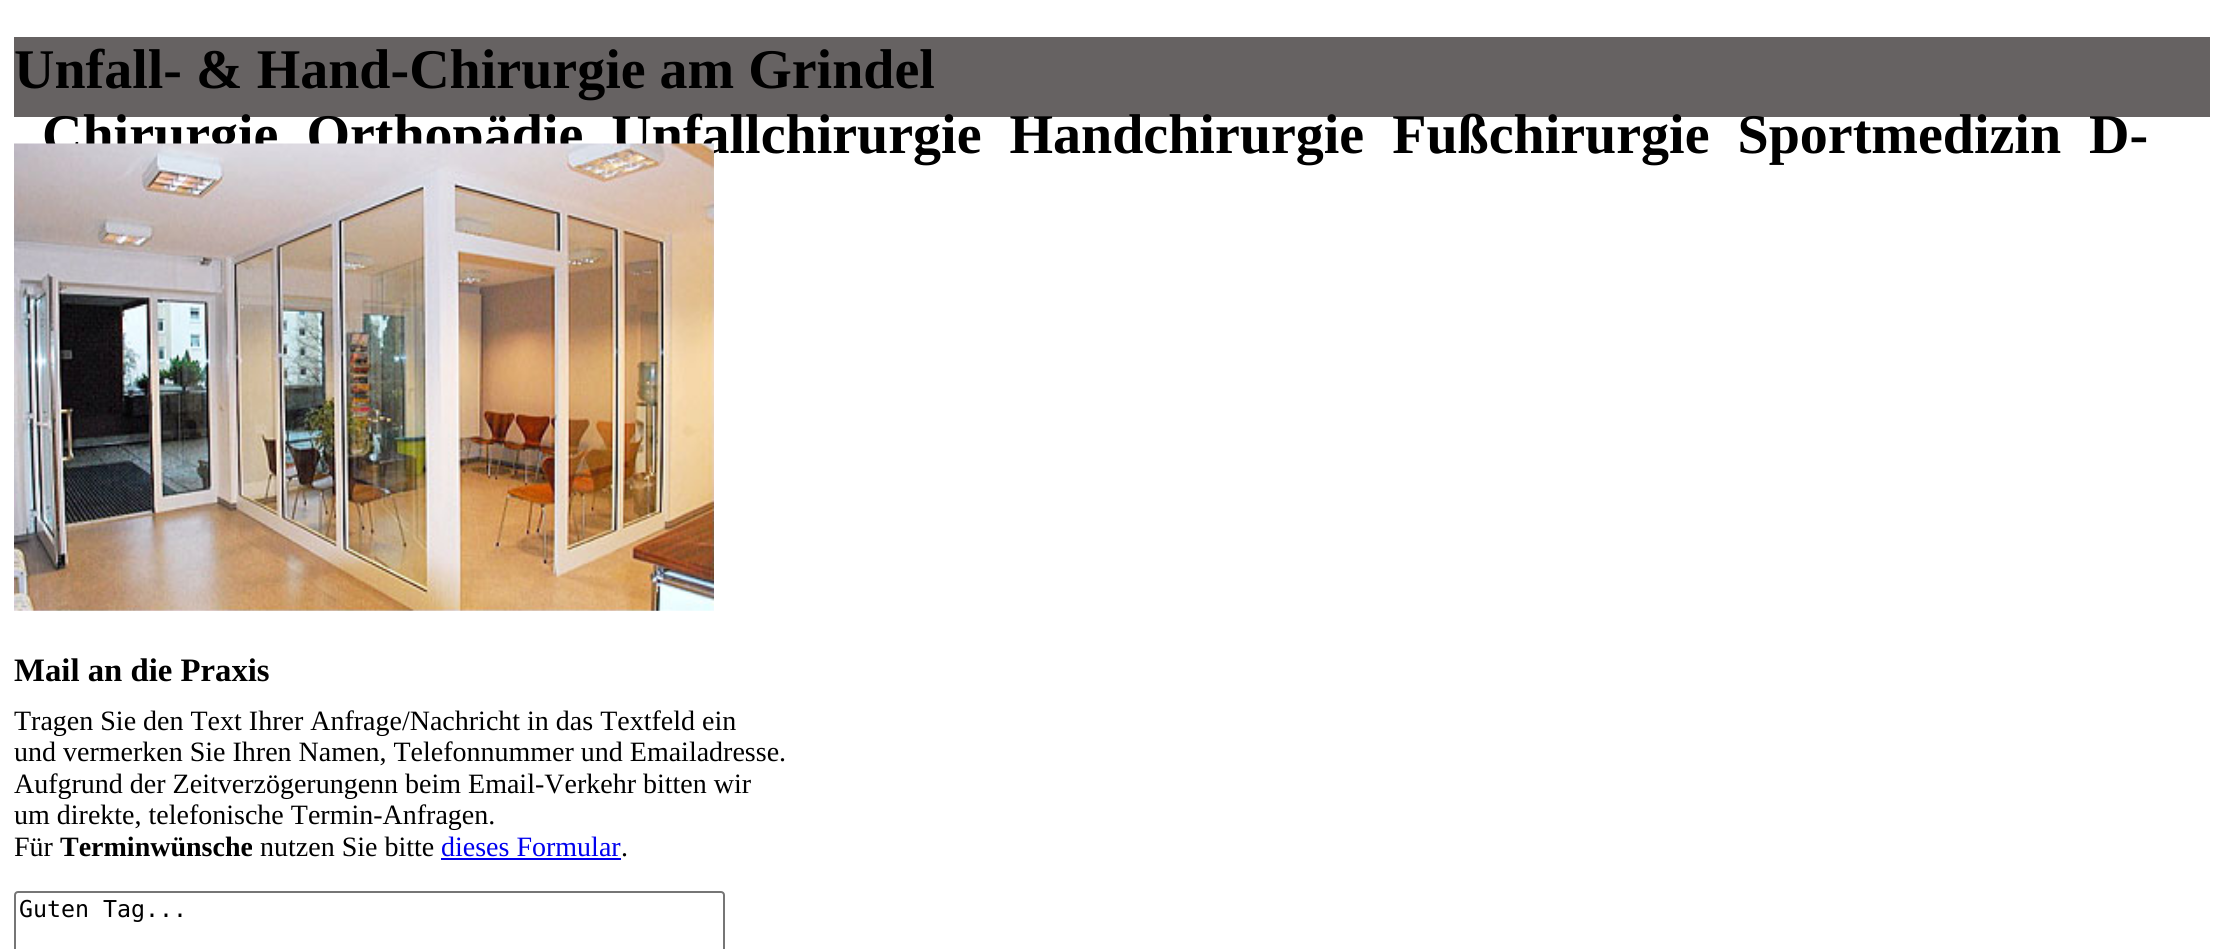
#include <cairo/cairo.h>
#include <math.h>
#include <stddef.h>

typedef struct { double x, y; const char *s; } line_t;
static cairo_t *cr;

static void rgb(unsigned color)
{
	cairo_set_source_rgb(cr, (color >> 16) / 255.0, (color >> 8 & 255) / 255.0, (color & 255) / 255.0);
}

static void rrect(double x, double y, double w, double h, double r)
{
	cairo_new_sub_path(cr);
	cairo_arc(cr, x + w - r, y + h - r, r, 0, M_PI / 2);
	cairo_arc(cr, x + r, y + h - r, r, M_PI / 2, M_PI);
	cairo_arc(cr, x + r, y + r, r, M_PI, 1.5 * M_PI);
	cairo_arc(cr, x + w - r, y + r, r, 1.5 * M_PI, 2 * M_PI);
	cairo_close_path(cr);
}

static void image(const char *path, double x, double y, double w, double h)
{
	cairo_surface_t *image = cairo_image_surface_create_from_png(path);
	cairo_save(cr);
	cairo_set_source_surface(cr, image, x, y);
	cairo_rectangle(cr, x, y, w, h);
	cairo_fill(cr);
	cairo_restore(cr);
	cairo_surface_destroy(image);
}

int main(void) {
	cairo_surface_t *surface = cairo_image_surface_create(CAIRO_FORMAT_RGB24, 2224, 949);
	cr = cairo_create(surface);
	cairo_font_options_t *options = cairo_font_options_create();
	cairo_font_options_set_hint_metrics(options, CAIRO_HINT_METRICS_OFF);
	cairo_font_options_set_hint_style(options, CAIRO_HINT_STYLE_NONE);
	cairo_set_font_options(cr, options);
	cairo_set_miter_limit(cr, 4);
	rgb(0xffffff);
	cairo_paint(cr);
	rgb(0x666262);
	cairo_rectangle(cr, 14, 37, 2196, 80);
	cairo_fill(cr);
	rgb(0x0000ee);
	cairo_rectangle(cr, 441, 858, 180, 2);
	cairo_fill(cr);
	rrect(15, 892, 709, 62, 3);
	rgb(0x767676);
	cairo_stroke(cr);
	cairo_select_font_face(cr, "Liberation Serif", CAIRO_FONT_SLANT_NORMAL, CAIRO_FONT_WEIGHT_BOLD);
	cairo_set_font_size(cr, 56);
	rgb(0x000000);
	cairo_move_to(cr, 14, 88);
	cairo_show_text(cr, "Unfall- & Hand-Chirurgie am Grindel");
	cairo_move_to(cr, 42, 153);
	cairo_show_text(cr, "Chirurgie  Orthopädie  Unfallchirurgie  Handchirurgie  Fußchirurgie  Sportmedizin  D-");
	image("img/1.png", 14, 143, 700, 468);
	cairo_set_font_size(cr, 32.75);
	cairo_move_to(cr, 14, 681);
	cairo_show_text(cr, "Mail an die Praxis");
	cairo_select_font_face(cr, "Liberation Serif", CAIRO_FONT_SLANT_NORMAL, CAIRO_FONT_WEIGHT_NORMAL);
	cairo_set_font_size(cr, 28);
	{
		static const line_t items[] = {
			{14, 730, "Tragen Sie den Text Ihrer Anfrage/Nachricht in das Textfeld ein"},
			{14, 761, "und vermerken Sie Ihren Namen, Telefonnummer und Emailadresse."},
			{14, 793, "Aufgrund der Zeitverzögerungenn beim Email-Verkehr bitten wir"},
			{14, 824, "um direkte, telefonische Termin-Anfragen."},
			{14, 856, "Für"},
		};
		for (size_t i = 0; i < sizeof items / sizeof *items; i++) {
			cairo_move_to(cr, items[i].x, items[i].y);
			cairo_show_text(cr, items[i].s);
		}
	}
	cairo_select_font_face(cr, "Liberation Serif", CAIRO_FONT_SLANT_NORMAL, CAIRO_FONT_WEIGHT_BOLD);
	cairo_move_to(cr, 60, 856);
	cairo_show_text(cr, "Terminwünsche");
	cairo_select_font_face(cr, "Liberation Serif", CAIRO_FONT_SLANT_NORMAL, CAIRO_FONT_WEIGHT_NORMAL);
	cairo_move_to(cr, 260, 856);
	cairo_show_text(cr, "nutzen Sie bitte");
	rgb(0x0000ee);
	cairo_move_to(cr, 441, 856);
	cairo_show_text(cr, "dieses Formular");
	rgb(0x000000);
	cairo_move_to(cr, 621, 856);
	cairo_show_text(cr, ".");
	cairo_select_font_face(cr, "DejaVu Sans Mono", CAIRO_FONT_SLANT_NORMAL, CAIRO_FONT_WEIGHT_NORMAL);
	cairo_set_font_size(cr, 23.25);
	cairo_move_to(cr, 19, 917);
	cairo_show_text(cr, "Guten Tag...");
	cairo_surface_write_to_png(surface, "page.png");
	cairo_font_options_destroy(options);
	cairo_destroy(cr);
	cairo_surface_destroy(surface);
	return 0;
}
